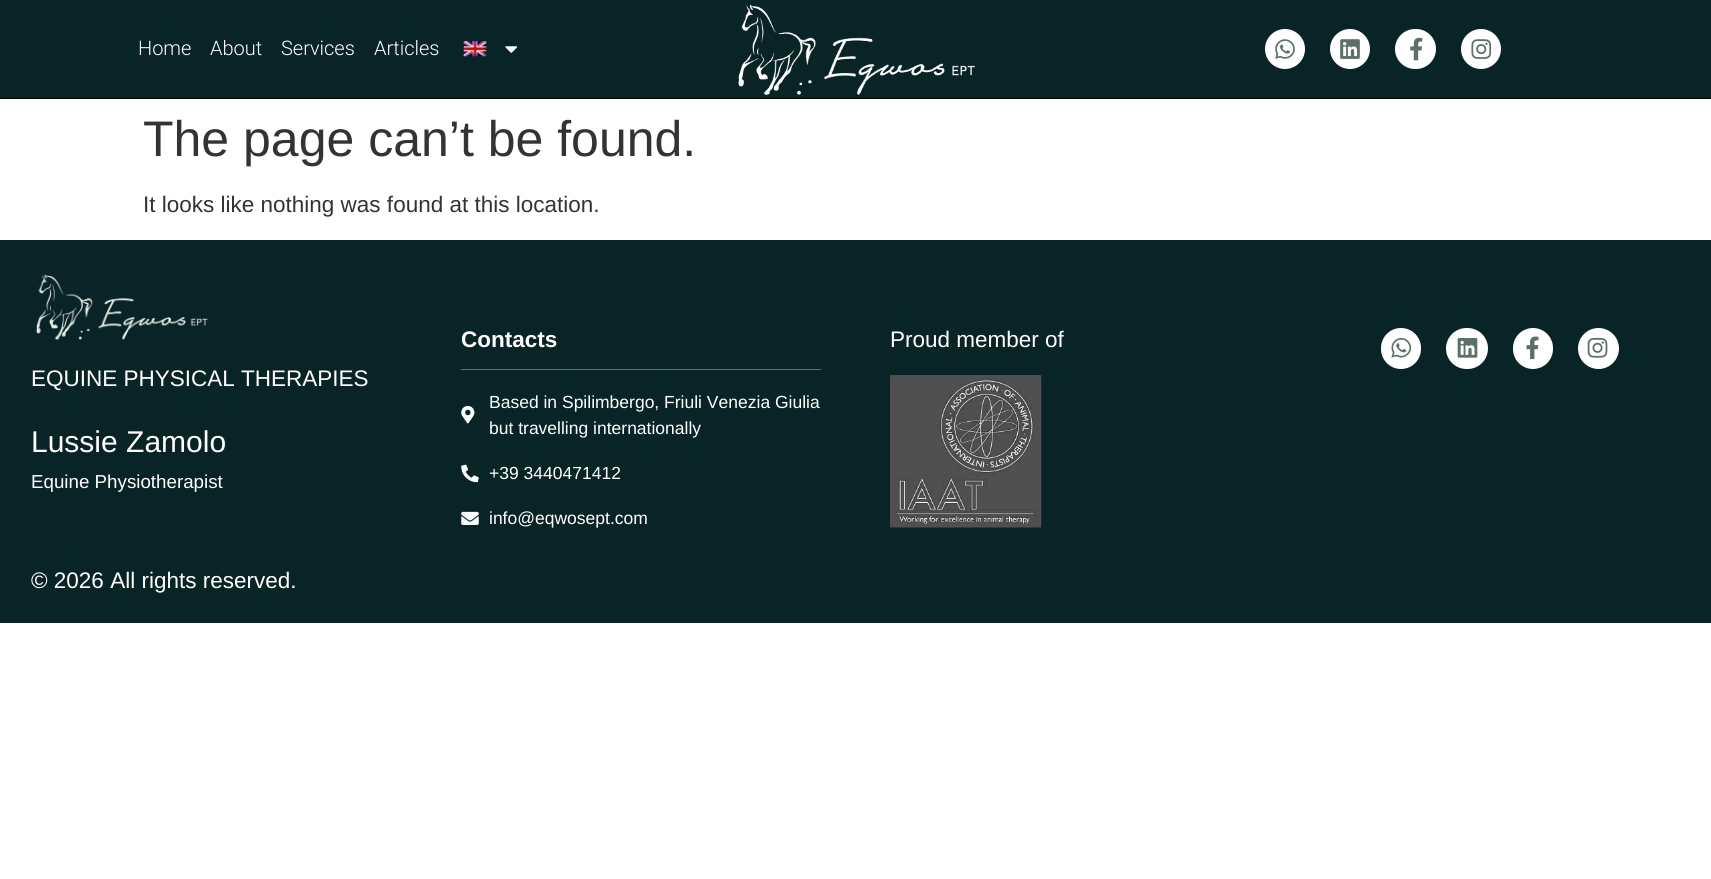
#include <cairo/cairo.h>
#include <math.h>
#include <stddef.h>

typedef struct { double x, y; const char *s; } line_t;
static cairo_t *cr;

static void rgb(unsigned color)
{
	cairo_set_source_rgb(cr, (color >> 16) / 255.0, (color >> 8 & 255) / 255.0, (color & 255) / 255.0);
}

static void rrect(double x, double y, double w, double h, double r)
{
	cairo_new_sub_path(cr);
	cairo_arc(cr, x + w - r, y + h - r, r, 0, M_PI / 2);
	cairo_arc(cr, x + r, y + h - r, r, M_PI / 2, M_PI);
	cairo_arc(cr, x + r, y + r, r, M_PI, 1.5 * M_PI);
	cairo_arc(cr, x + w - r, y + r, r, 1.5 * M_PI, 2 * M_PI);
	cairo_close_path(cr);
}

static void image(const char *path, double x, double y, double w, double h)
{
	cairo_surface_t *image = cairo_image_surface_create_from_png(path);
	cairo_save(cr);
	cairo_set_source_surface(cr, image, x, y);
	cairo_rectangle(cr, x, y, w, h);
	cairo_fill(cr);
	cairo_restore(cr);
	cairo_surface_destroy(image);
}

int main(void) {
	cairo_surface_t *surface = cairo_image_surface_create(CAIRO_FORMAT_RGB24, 1711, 879);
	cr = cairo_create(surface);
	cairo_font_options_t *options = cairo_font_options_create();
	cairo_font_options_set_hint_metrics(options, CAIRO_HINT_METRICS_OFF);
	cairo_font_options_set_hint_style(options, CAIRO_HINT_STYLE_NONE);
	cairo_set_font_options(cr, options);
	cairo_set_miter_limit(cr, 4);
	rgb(0xffffff);
	cairo_paint(cr);
	rgb(0x092426);
	cairo_rectangle(cr, 0, 0, 1711, 98);
	cairo_fill(cr);
	rgb(0x000000);
	cairo_rectangle(cr, 0, 98, 1711, 1);
	cairo_fill(cr);
	image("img/1.png", 463, 41, 24, 16);
	image("img/2.png", 505, 46, 12, 7);
	image("img/3.png", 738, 4, 237, 91);
	rgb(0xffffff);
	cairo_arc(cr, 1285, 49, 20, 0, 2 * M_PI);
	cairo_fill(cr);
	image("img/4.png", 1275, 39, 20, 20);
	cairo_arc(cr, 1350, 49, 20, 0, 2 * M_PI);
	cairo_fill(cr);
	image("img/5.png", 1340, 39, 20, 20);
	rrect(1395, 29, 41, 40, 20);
	cairo_fill(cr);
	image("img/6.png", 1410, 37, 13, 24);
	cairo_arc(cr, 1481, 49, 20, 0, 2 * M_PI);
	cairo_fill(cr);
	image("img/7.png", 1471, 39, 21, 20);
	rgb(0x092426);
	cairo_rectangle(cr, 0, 240, 1711, 383);
	cairo_fill(cr);
	image("img/8.png", 36, 274, 172, 66);
	rgb(0x5c6f6b);
	cairo_rectangle(cr, 461, 369, 360, 1);
	cairo_fill(cr);
	image("img/9.png", 461, 405, 14, 19);
	image("img/10.png", 461, 464, 18, 19);
	image("img/11.png", 461, 511, 18, 14);
	image("img/12.png", 890, 375, 152, 153);
	rgb(0xffffff);
	rrect(1381, 328, 40, 41, 20);
	cairo_fill(cr);
	image("img/13.png", 1391, 338, 21, 20);
	rrect(1446, 328, 42, 41, 20.5);
	cairo_fill(cr);
	image("img/14.png", 1457, 338, 21, 20);
	rrect(1513, 328, 40, 41, 20);
	cairo_fill(cr);
	image("img/15.png", 1526, 336, 13, 24);
	cairo_arc(cr, 1598.5, 348.5, 20.5, 0, 2 * M_PI);
	cairo_fill(cr);
	image("img/16.png", 1587, 337, 21, 21);
	cairo_select_font_face(cr, "Roboto Light", CAIRO_FONT_SLANT_NORMAL, CAIRO_FONT_WEIGHT_NORMAL);
	cairo_set_font_size(cr, 20);
	{
		static const line_t items[] = {
			{138, 55, "Home"},
			{210, 55, "About"},
			{281, 55, "Services"},
			{374, 55, "Articles"},
		};
		for (size_t i = 0; i < sizeof items / sizeof *items; i++) {
			cairo_move_to(cr, items[i].x, items[i].y);
			cairo_show_text(cr, items[i].s);
		}
	}
	cairo_select_font_face(cr, "Liberation Sans", CAIRO_FONT_SLANT_NORMAL, CAIRO_FONT_WEIGHT_NORMAL);
	cairo_set_font_size(cr, 50);
	rgb(0x333333);
	cairo_move_to(cr, 143, 156);
	cairo_show_text(cr, "The page can’t be found.");
	cairo_set_font_size(cr, 22.5);
	cairo_move_to(cr, 143, 212);
	cairo_show_text(cr, "It looks like nothing was found at this location.");
	rgb(0xffffff);
	cairo_move_to(cr, 31, 386);
	cairo_show_text(cr, "EQUINE PHYSICAL THERAPIES");
	cairo_set_font_size(cr, 30);
	cairo_move_to(cr, 31, 452);
	cairo_show_text(cr, "Lussie Zamolo");
	cairo_set_font_size(cr, 18.75);
	cairo_move_to(cr, 31, 488);
	cairo_show_text(cr, "Equine Physiotherapist");
	cairo_set_font_size(cr, 22.5);
	cairo_move_to(cr, 31, 588);
	cairo_show_text(cr, "© 2026 All rights reserved.");
	cairo_select_font_face(cr, "Liberation Sans", CAIRO_FONT_SLANT_NORMAL, CAIRO_FONT_WEIGHT_BOLD);
	cairo_move_to(cr, 461, 347);
	cairo_show_text(cr, "Contacts");
	cairo_select_font_face(cr, "Liberation Sans", CAIRO_FONT_SLANT_NORMAL, CAIRO_FONT_WEIGHT_NORMAL);
	cairo_set_font_size(cr, 17.5);
	{
		static const line_t items[] = {
			{489, 408, "Based in Spilimbergo, Friuli Venezia Giulia"},
			{489, 434, "but travelling internationally"},
			{489, 479, "+39 3440471412"},
			{489, 524, "info@eqwosept.com"},
		};
		for (size_t i = 0; i < sizeof items / sizeof *items; i++) {
			cairo_move_to(cr, items[i].x, items[i].y);
			cairo_show_text(cr, items[i].s);
		}
	}
	cairo_set_font_size(cr, 22.5);
	cairo_move_to(cr, 890, 347);
	cairo_show_text(cr, "Proud member of");
	cairo_surface_write_to_png(surface, "page.png");
	cairo_font_options_destroy(options);
	cairo_destroy(cr);
	cairo_surface_destroy(surface);
	return 0;
}
